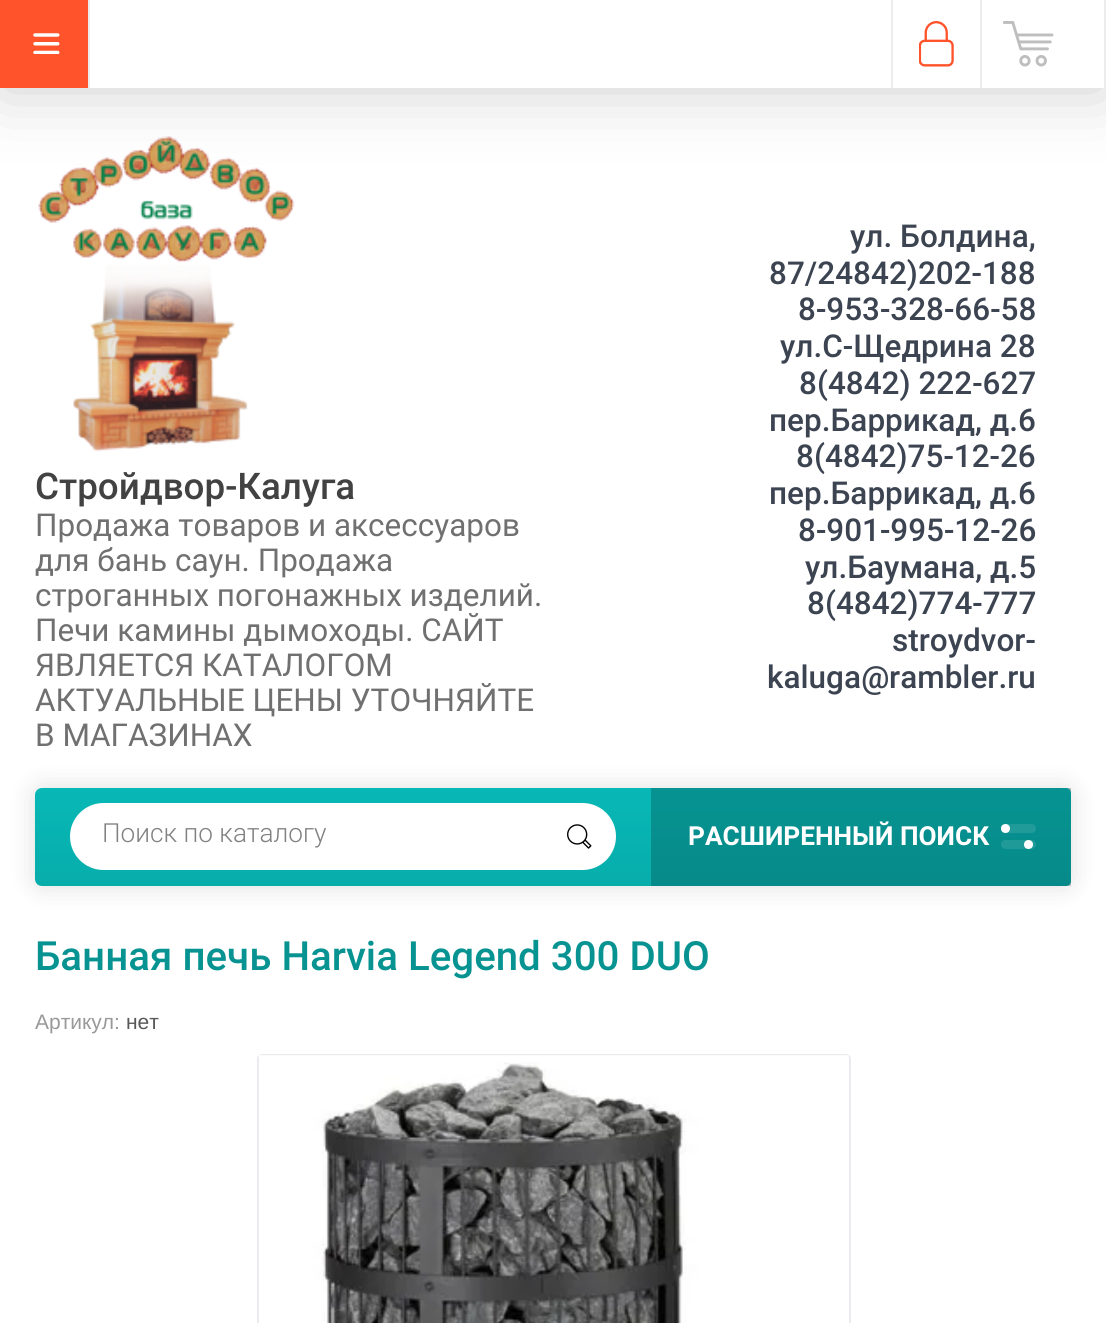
#include <cairo/cairo.h>
#include <math.h>
#include <stddef.h>

typedef struct { double x, y; const char *s; } line_t;
typedef struct { double x, y, w, h; unsigned color; } box_t;
static cairo_t *cr;

static void rgb(unsigned color)
{
	cairo_set_source_rgb(cr, (color >> 16) / 255.0, (color >> 8 & 255) / 255.0, (color & 255) / 255.0);
}

static void rrect(double x, double y, double w, double h, double r)
{
	cairo_new_sub_path(cr);
	cairo_arc(cr, x + w - r, y + h - r, r, 0, M_PI / 2);
	cairo_arc(cr, x + r, y + h - r, r, M_PI / 2, M_PI);
	cairo_arc(cr, x + r, y + r, r, M_PI, 1.5 * M_PI);
	cairo_arc(cr, x + w - r, y + r, r, 1.5 * M_PI, 2 * M_PI);
	cairo_close_path(cr);
}

static void soft_shadow(double x, double y, double w, double h, double r, double blur, double alpha)
{
	cairo_push_group_with_content(cr, CAIRO_CONTENT_ALPHA);
	cairo_set_operator(cr, CAIRO_OPERATOR_SOURCE);
	for (int i = 15; i >= -15 && fmin(w, h) + blur * i / 3 > 0; i -= 2) {
		double e = blur * i / 6;
		cairo_set_source_rgba(cr, 0, 0, 0, alpha * erfc((i - 1) / 8.5) / 2);
		rrect(x - e, y - e, w + 2 * e, h + 2 * e, fmax(0, fmin(r + e + blur * .6, fmin(w, h) / 2 + e)));
		cairo_fill(cr);
	}
	cairo_pattern_t *soft = cairo_pop_group(cr);
	cairo_mask(cr, soft);
	cairo_pattern_destroy(soft);
}

static void image(const char *path, double x, double y, double w, double h)
{
	cairo_surface_t *image = cairo_image_surface_create_from_png(path);
	cairo_save(cr);
	cairo_set_source_surface(cr, image, x, y);
	cairo_rectangle(cr, x, y, w, h);
	cairo_fill(cr);
	cairo_restore(cr);
	cairo_surface_destroy(image);
}

int main(void) {
	cairo_surface_t *surface = cairo_image_surface_create(CAIRO_FORMAT_RGB24, 1106, 1323);
	cr = cairo_create(surface);
	cairo_font_options_t *options = cairo_font_options_create();
	cairo_font_options_set_hint_metrics(options, CAIRO_HINT_METRICS_OFF);
	cairo_font_options_set_hint_style(options, CAIRO_HINT_STYLE_NONE);
	cairo_set_font_options(cr, options);
	cairo_set_miter_limit(cr, 4);
	cairo_pattern_t *gradient;
	rgb(0xffffff);
	cairo_paint(cr);
	image("img/4.png", 38, 136, 257, 316);
	rgb(0x000000);
	soft_shadow(0, 2, 1106, 87, 0, 35, 0.2);
	rgb(0xffffff);
	cairo_rectangle(cr, 90, 0, 1014, 88);
	cairo_fill(cr);
	rgb(0xff532b);
	cairo_rectangle(cr, 0, 0, 88, 88);
	cairo_fill(cr);
	image("img/1.png", 33, 33, 27, 21);
	{
		static const box_t items[] = {
			{88, 0, 2, 88, 0xececec},
			{891, 0, 2, 88, 0xececec},
			{980, 0, 2, 88, 0xececec},
		};
		for (size_t i = 0; i < sizeof items / sizeof *items; i++) {
			rgb(items[i].color);
			cairo_rectangle(cr, items[i].x, items[i].y, items[i].w, items[i].h);
			cairo_fill(cr);
		}
	}
	image("img/2.png", 919, 21, 35, 46);
	cairo_rectangle(cr, 1104, 0, 2, 88);
	cairo_fill(cr);
	image("img/3.png", 1003, 21, 51, 46);
	rgb(0x000000);
	soft_shadow(35, 788, 1036, 98, 7, 13, 0.13);
	gradient = cairo_pattern_create_linear(553, 886, 553, 788);
	cairo_pattern_add_color_stop_rgba(gradient, 0, 0.027, 0.678, 0.671, 1);
	cairo_pattern_add_color_stop_rgba(gradient, 1, 0.031, 0.722, 0.714, 1);
	cairo_set_source(cr, gradient);
	cairo_pattern_destroy(gradient);
	cairo_new_path(cr);
	cairo_move_to(cr, 42, 788);
	cairo_line_to(cr, 1066, 788);
	cairo_curve_to(cr, 1069, 788, 1071, 790, 1071, 793);
	cairo_line_to(cr, 1071, 881);
	cairo_curve_to(cr, 1071, 884, 1069, 886, 1066, 886);
	cairo_line_to(cr, 42, 886);
	cairo_curve_to(cr, 38, 886, 35, 883, 35, 879);
	cairo_line_to(cr, 35, 795);
	cairo_curve_to(cr, 35, 791, 38, 788, 42, 788);
	cairo_close_path(cr);
	cairo_fill(cr);
	rgb(0xffffff);
	rrect(70, 803, 546, 67, 33.5);
	cairo_fill(cr);
	image("img/5.png", 567, 824, 25, 25);
	cairo_set_source_rgba(cr, 0, 0, 0, 0.2);
	cairo_rectangle(cr, 651, 788, 420, 98);
	cairo_fill(cr);
	rgb(0x219b9a);
	rrect(1001, 824, 35, 9, 4.5);
	cairo_fill(cr);
	rgb(0xffffff);
	cairo_arc(cr, 1005.5, 828.5, 4.5, 0, 2 * M_PI);
	cairo_fill(cr);
	rgb(0x209a99);
	rrect(1001, 840, 35, 9, 4.5);
	cairo_fill(cr);
	rgb(0xffffff);
	cairo_arc(cr, 1028.5, 844.5, 4.5, 0, 2 * M_PI);
	cairo_fill(cr);
	rrect(258, 1055, 592, 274, 4);
	rgb(0xe9ebee);
	cairo_stroke(cr);
	image("img/6.png", 259, 1055, 590, 268);
	cairo_select_font_face(cr, "Roboto Medium", CAIRO_FONT_SLANT_NORMAL, CAIRO_FONT_WEIGHT_NORMAL);
	cairo_set_font_size(cr, 36.75);
	rgb(0x424242);
	cairo_move_to(cr, 35, 499);
	cairo_show_text(cr, "Стройдвор-Калуга");
	cairo_select_font_face(cr, "Roboto", CAIRO_FONT_SLANT_NORMAL, CAIRO_FONT_WEIGHT_NORMAL);
	cairo_set_font_size(cr, 31.5);
	rgb(0x707070);
	{
		static const line_t items[] = {
			{35, 536, "Продажа товаров и аксессуаров"},
			{35, 571, "для бань саун. Продажа"},
			{35, 606, "строганных погонажных изделий."},
			{35, 641, "Печи камины дымоходы. САЙТ"},
			{35, 676, "ЯВЛЯЕТСЯ КАТАЛОГОМ"},
			{35, 711, "АКТУАЛЬНЫЕ ЦЕНЫ УТОЧНЯЙТЕ"},
			{35, 746, "В МАГАЗИНАХ"},
		};
		for (size_t i = 0; i < sizeof items / sizeof *items; i++) {
			cairo_move_to(cr, items[i].x, items[i].y);
			cairo_show_text(cr, items[i].s);
		}
	}
	cairo_select_font_face(cr, "Roboto Medium", CAIRO_FONT_SLANT_NORMAL, CAIRO_FONT_WEIGHT_NORMAL);
	rgb(0x3c4452);
	{
		static const line_t items[] = {
			{850, 247, "ул. Болдина,"},
			{769, 284, "87/24842)202-188"},
			{798, 320, "8-953-328-66-58"},
			{780, 357, "ул.С-Щедрина 28"},
			{799, 394, "8(4842) 222-627"},
			{769, 431, "пер.Баррикад, д.6"},
			{796, 467, "8(4842)75-12-26"},
			{769, 504, "пер.Баррикад, д.6"},
			{798, 541, "8-901-995-12-26"},
			{805, 578, "ул.Баумана, д.5"},
			{807, 614, "8(4842)774-777"},
			{892, 651, "stroydvor-"},
			{767, 688, "kaluga@rambler.ru"},
		};
		for (size_t i = 0; i < sizeof items / sizeof *items; i++) {
			cairo_move_to(cr, items[i].x, items[i].y);
			cairo_show_text(cr, items[i].s);
		}
	}
	cairo_select_font_face(cr, "Roboto Light", CAIRO_FONT_SLANT_NORMAL, CAIRO_FONT_WEIGHT_NORMAL);
	cairo_set_font_size(cr, 26.25);
	rgb(0x818181);
	cairo_move_to(cr, 102, 842);
	cairo_show_text(cr, "Поиск по каталогу");
	cairo_select_font_face(cr, "Roboto", CAIRO_FONT_SLANT_NORMAL, CAIRO_FONT_WEIGHT_BOLD);
	rgb(0xffffff);
	cairo_move_to(cr, 688, 845);
	cairo_show_text(cr, "РАСШИРЕННЫЙ ПОИСК");
	cairo_select_font_face(cr, "Roboto Medium", CAIRO_FONT_SLANT_NORMAL, CAIRO_FONT_WEIGHT_NORMAL);
	cairo_set_font_size(cr, 40.25);
	rgb(0x079391);
	cairo_move_to(cr, 35, 970);
	cairo_show_text(cr, "Банная печь Harvia Legend 300 DUO");
	cairo_select_font_face(cr, "Liberation Sans", CAIRO_FONT_SLANT_NORMAL, CAIRO_FONT_WEIGHT_NORMAL);
	cairo_set_font_size(cr, 21);
	rgb(0x999999);
	cairo_move_to(cr, 35, 1029);
	cairo_show_text(cr, "Артикул:");
	rgb(0x585858);
	cairo_move_to(cr, 126, 1029);
	cairo_show_text(cr, "нет");
	cairo_surface_write_to_png(surface, "page.png");
	cairo_font_options_destroy(options);
	cairo_destroy(cr);
	cairo_surface_destroy(surface);
	return 0;
}
